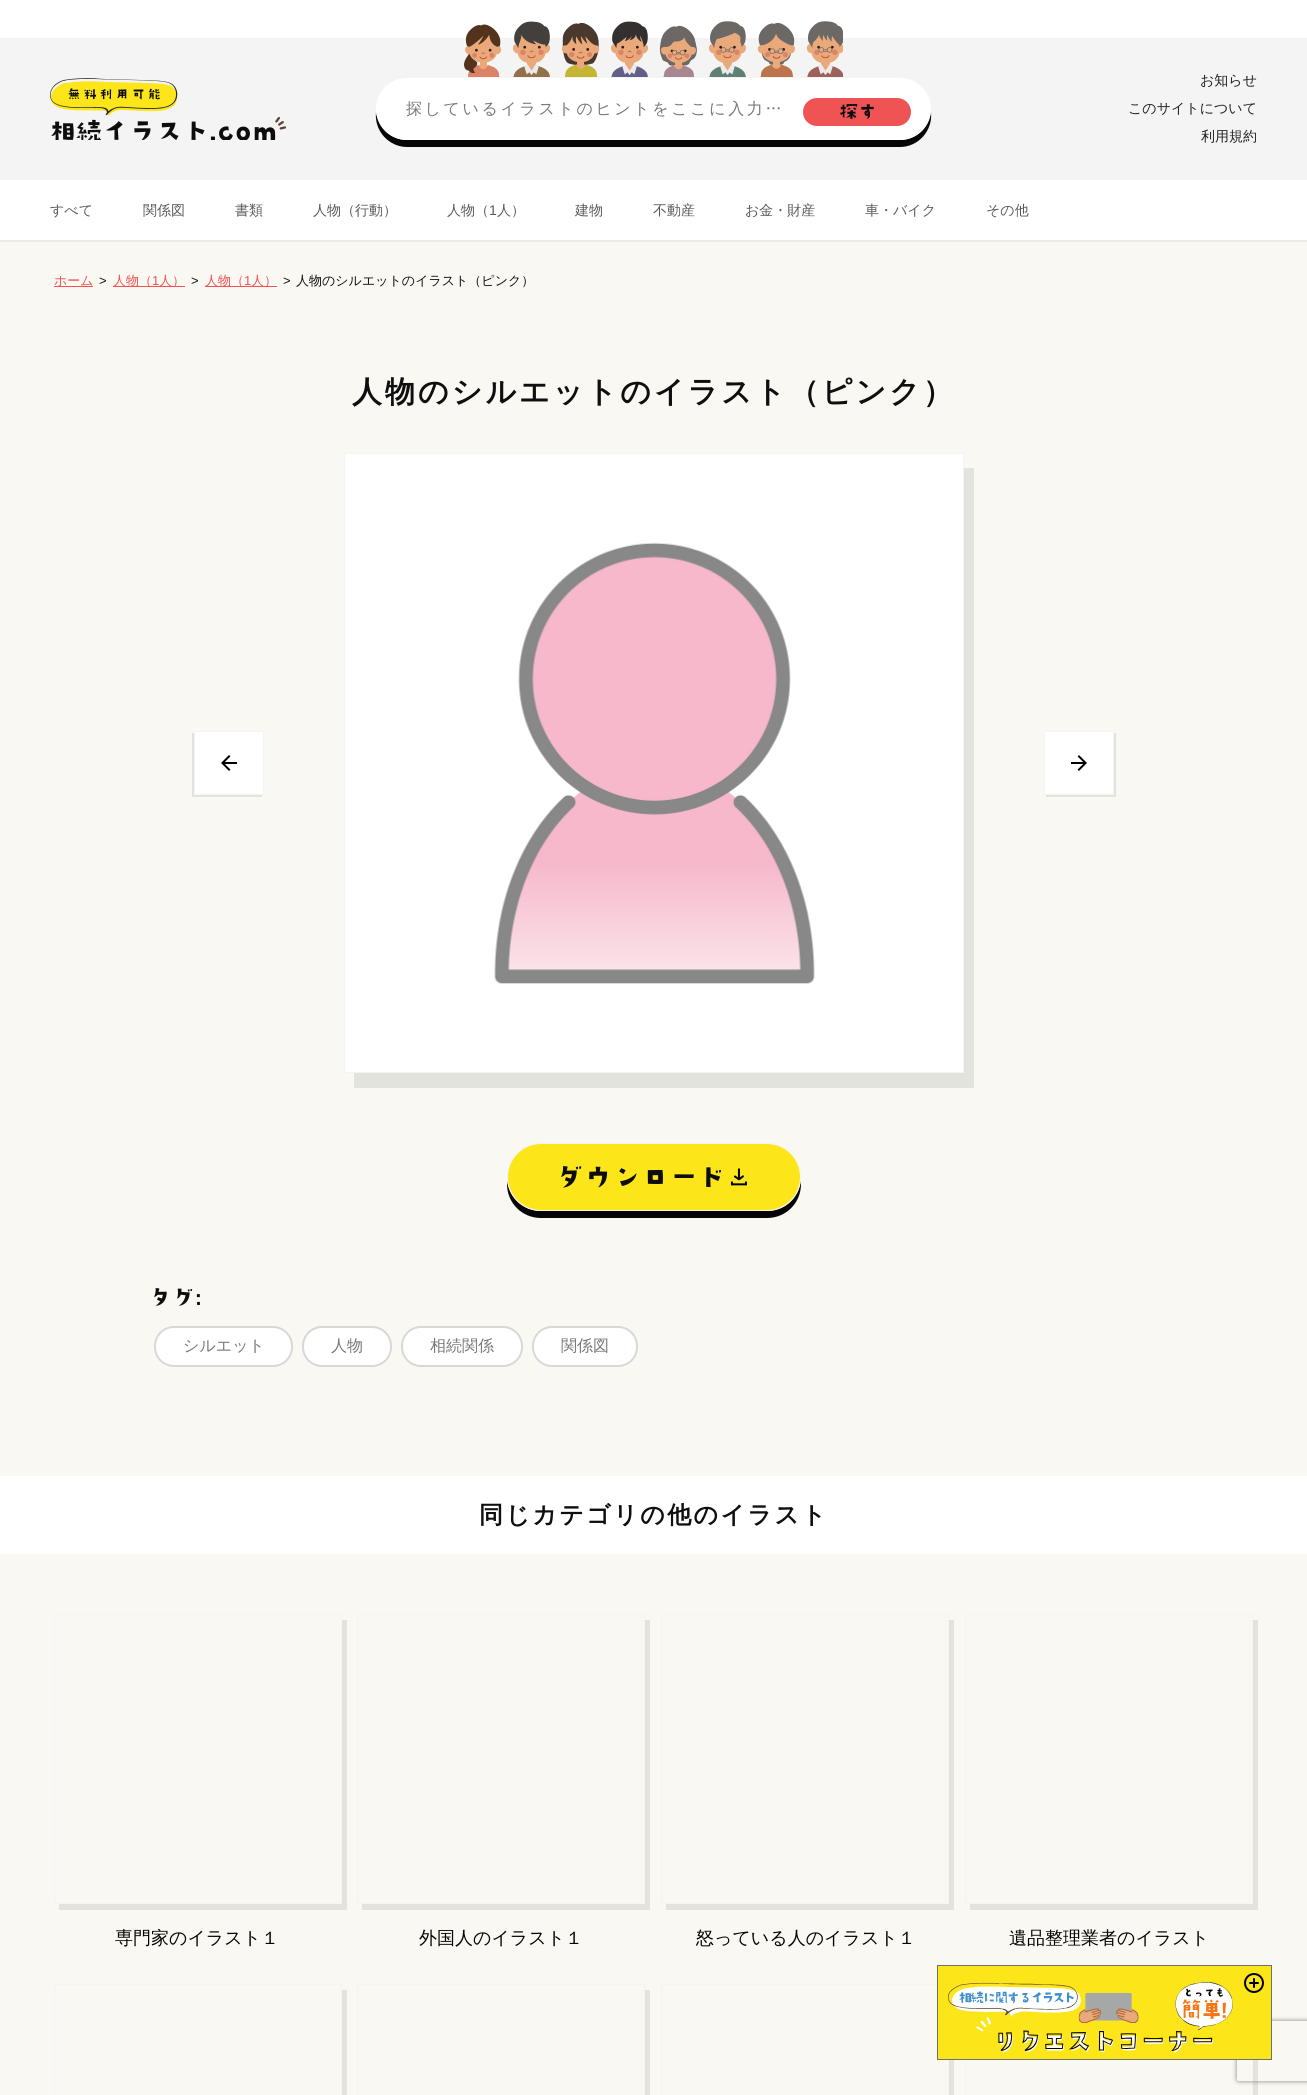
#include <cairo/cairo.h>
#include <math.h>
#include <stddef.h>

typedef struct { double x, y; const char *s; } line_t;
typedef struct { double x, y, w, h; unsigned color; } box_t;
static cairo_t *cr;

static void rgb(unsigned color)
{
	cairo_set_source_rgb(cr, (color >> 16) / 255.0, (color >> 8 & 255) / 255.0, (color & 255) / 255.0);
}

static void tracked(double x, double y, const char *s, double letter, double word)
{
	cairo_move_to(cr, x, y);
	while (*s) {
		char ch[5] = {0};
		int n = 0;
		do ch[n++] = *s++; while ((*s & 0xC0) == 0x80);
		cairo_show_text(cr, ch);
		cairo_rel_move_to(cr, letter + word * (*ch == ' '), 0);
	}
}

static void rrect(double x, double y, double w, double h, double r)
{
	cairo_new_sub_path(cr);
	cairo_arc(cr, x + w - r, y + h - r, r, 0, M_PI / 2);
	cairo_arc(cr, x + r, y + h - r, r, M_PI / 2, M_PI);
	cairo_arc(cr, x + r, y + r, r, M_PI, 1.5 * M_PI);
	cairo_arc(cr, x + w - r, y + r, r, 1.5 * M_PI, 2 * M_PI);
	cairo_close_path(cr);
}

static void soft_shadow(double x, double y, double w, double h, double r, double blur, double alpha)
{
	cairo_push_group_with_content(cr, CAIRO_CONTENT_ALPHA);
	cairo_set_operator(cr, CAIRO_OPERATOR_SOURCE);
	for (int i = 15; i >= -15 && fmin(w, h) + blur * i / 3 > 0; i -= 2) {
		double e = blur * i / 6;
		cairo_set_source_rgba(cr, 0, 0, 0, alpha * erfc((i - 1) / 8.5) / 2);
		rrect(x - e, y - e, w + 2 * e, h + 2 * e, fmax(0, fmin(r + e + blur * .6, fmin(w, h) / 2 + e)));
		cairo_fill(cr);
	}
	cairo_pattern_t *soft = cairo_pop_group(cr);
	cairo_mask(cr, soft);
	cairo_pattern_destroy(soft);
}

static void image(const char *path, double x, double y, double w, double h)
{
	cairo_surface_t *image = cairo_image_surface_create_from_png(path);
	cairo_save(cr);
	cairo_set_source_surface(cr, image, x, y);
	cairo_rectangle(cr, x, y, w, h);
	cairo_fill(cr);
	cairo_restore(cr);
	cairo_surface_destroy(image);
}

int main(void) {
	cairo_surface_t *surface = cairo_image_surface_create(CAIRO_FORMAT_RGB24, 1307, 2095);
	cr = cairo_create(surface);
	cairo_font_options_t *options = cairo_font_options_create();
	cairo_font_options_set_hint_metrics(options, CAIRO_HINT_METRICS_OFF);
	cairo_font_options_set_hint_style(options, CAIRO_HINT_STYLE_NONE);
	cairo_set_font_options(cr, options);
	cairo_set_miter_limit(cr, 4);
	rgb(0xffffff);
	cairo_paint(cr);
	rgb(0xf4f4f4);
	cairo_rectangle(cr, 0, 38, 1307, 142);
	cairo_fill(cr);
	image("img/1.png", 50, 78, 236, 62);
	image("img/2.png", 464, 21, 379, 56);
	rgb(0x070606);
	cairo_new_path(cr);
	cairo_move_to(cr, 376, 112);
	cairo_curve_to(cr, 374, 131, 389, 147, 407, 147);
	cairo_line_to(cr, 900, 147);
	cairo_curve_to(cr, 918, 147, 933, 131, 931, 112);
	cairo_curve_to(cr, 929, 128, 916, 140, 900, 140);
	cairo_line_to(cr, 407, 140);
	cairo_curve_to(cr, 391, 140, 378, 128, 376, 112);
	cairo_close_path(cr);
	cairo_fill(cr);
	rgb(0xffffff);
	rrect(376, 78, 555, 62, 31);
	cairo_fill(cr);
	rgb(0xf05353);
	rrect(803, 98, 108, 28, 14);
	cairo_fill(cr);
	image("img/3.png", 840, 104, 34, 15);
	{
		static const box_t items[] = {
			{0, 240, 1307, 2, 0xebebeb},
			{0, 242, 1307, 1853, 0xfaf8f2},
			{54, 286, 39, 1, 0xf05353},
			{113, 286, 72, 1, 0xf05353},
			{205, 286, 72, 1, 0xf05353},
		};
		for (size_t i = 0; i < sizeof items / sizeof *items; i++) {
			rgb(items[i].color);
			cairo_rectangle(cr, items[i].x, items[i].y, items[i].w, items[i].h);
			cairo_fill(cr);
		}
	}
	rgb(0xe3e3dd);
	cairo_new_path(cr);
	cairo_move_to(cr, 192, 733);
	cairo_line_to(cr, 192, 797);
	cairo_line_to(cr, 262, 797);
	cairo_line_to(cr, 262, 795);
	cairo_line_to(cr, 194, 795);
	cairo_line_to(cr, 194, 733);
	cairo_close_path(cr);
	cairo_fill(cr);
	rgb(0xffffff);
	cairo_rectangle(cr, 195, 732, 68, 62);
	cairo_fill(cr);
	image("img/4.png", 221, 755, 16, 16);
	cairo_rectangle(cr, 194.5, 731.5, 69, 63);
	rgb(0xf4f4f4);
	cairo_set_line_width(cr, 1);
	cairo_stroke(cr);
	rgb(0xe3e3dd);
	cairo_new_path(cr);
	cairo_move_to(cr, 354, 1073);
	cairo_line_to(cr, 354, 1088);
	cairo_line_to(cr, 974, 1088);
	cairo_line_to(cr, 974, 468);
	cairo_line_to(cr, 964, 468);
	cairo_line_to(cr, 964, 1073);
	cairo_close_path(cr);
	cairo_fill(cr);
	cairo_rectangle(cr, 344.5, 453.5, 619, 619);
	rgb(0xf4f4f4);
	cairo_stroke(cr);
	image("img/5.png", 345, 454, 618, 618);
	rgb(0xe3e3dd);
	cairo_new_path(cr);
	cairo_move_to(cr, 1046, 795);
	cairo_line_to(cr, 1046, 797);
	cairo_line_to(cr, 1116, 797);
	cairo_line_to(cr, 1116, 733);
	cairo_line_to(cr, 1114, 733);
	cairo_line_to(cr, 1114, 795);
	cairo_close_path(cr);
	cairo_fill(cr);
	rgb(0xffffff);
	cairo_rectangle(cr, 1045, 732, 68, 62);
	cairo_fill(cr);
	image("img/6.png", 1071, 755, 16, 16);
	cairo_rectangle(cr, 1044.5, 731.5, 69, 63);
	rgb(0xf4f4f4);
	cairo_stroke(cr);
	rgb(0x070606);
	cairo_new_path(cr);
	cairo_move_to(cr, 507, 1180);
	cairo_line_to(cr, 507, 1184);
	cairo_curve_to(cr, 507, 1203, 522, 1218, 541, 1218);
	cairo_line_to(cr, 767, 1218);
	cairo_curve_to(cr, 786, 1218, 801, 1203, 801, 1184);
	cairo_line_to(cr, 801, 1180);
	cairo_curve_to(cr, 799, 1198, 785, 1211, 767, 1211);
	cairo_line_to(cr, 541, 1211);
	cairo_curve_to(cr, 523, 1211, 509, 1198, 507, 1180);
	cairo_close_path(cr);
	cairo_fill(cr);
	rgb(0xfce619);
	rrect(507.5, 1143.5, 293, 67, 33.5);
	cairo_fill_preserve(cr);
	rgb(0xf5f4f4);
	cairo_stroke(cr);
	image("img/7.png", 561, 1166, 186, 22);
	image("img/8.png", 154, 1288, 46, 18);
	rgb(0xffffff);
	rrect(155, 1327, 137, 39, 19);
	cairo_fill_preserve(cr);
	rgb(0xd9d7d7);
	cairo_set_line_width(cr, 2);
	cairo_stroke(cr);
	rgb(0xffffff);
	rrect(303, 1327, 88, 39, 19);
	cairo_fill_preserve(cr);
	rgb(0xd9d7d7);
	cairo_stroke(cr);
	rgb(0xffffff);
	rrect(402, 1327, 120, 39, 19);
	cairo_fill_preserve(cr);
	rgb(0xd9d7d7);
	cairo_stroke(cr);
	rgb(0xffffff);
	rrect(533, 1327, 104, 39, 19);
	cairo_fill_preserve(cr);
	rgb(0xd9d7d7);
	cairo_stroke(cr);
	rgb(0xffffff);
	cairo_rectangle(cr, 0, 1476, 1307, 78);
	cairo_fill(cr);
	rgb(0xe3e3dd);
	cairo_new_path(cr);
	cairo_move_to(cr, 59, 1904);
	cairo_line_to(cr, 59, 1910);
	cairo_line_to(cr, 347, 1910);
	cairo_line_to(cr, 347, 1620);
	cairo_line_to(cr, 342, 1620);
	cairo_line_to(cr, 342, 1904);
	cairo_close_path(cr);
	cairo_fill(cr);
	cairo_rectangle(cr, 54.5, 1614.5, 287, 289);
	rgb(0xf4f4f4);
	cairo_set_line_width(cr, 1);
	cairo_stroke(cr);
	rgb(0xe3e3dd);
	cairo_new_path(cr);
	cairo_move_to(cr, 362, 1904);
	cairo_line_to(cr, 362, 1910);
	cairo_line_to(cr, 650, 1910);
	cairo_line_to(cr, 650, 1620);
	cairo_line_to(cr, 645, 1620);
	cairo_line_to(cr, 645, 1904);
	cairo_close_path(cr);
	cairo_fill(cr);
	cairo_rectangle(cr, 357.5, 1614.5, 287, 289);
	rgb(0xf4f4f4);
	cairo_stroke(cr);
	rgb(0xe3e3dd);
	cairo_new_path(cr);
	cairo_move_to(cr, 666, 1904);
	cairo_line_to(cr, 666, 1910);
	cairo_line_to(cr, 954, 1910);
	cairo_line_to(cr, 954, 1620);
	cairo_line_to(cr, 949, 1620);
	cairo_line_to(cr, 949, 1904);
	cairo_close_path(cr);
	cairo_fill(cr);
	cairo_rectangle(cr, 661.5, 1614.5, 287, 289);
	rgb(0xf4f4f4);
	cairo_stroke(cr);
	rgb(0xe3e3dd);
	cairo_new_path(cr);
	cairo_move_to(cr, 970, 1904);
	cairo_line_to(cr, 970, 1910);
	cairo_line_to(cr, 1258, 1910);
	cairo_line_to(cr, 1258, 1620);
	cairo_line_to(cr, 1253, 1620);
	cairo_line_to(cr, 1253, 1904);
	cairo_close_path(cr);
	cairo_fill(cr);
	cairo_rectangle(cr, 965.5, 1614.5, 287, 289);
	rgb(0xf4f4f4);
	cairo_stroke(cr);
	rgb(0xe3e3dd);
	cairo_new_path(cr);
	cairo_move_to(cr, 59, 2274);
	cairo_line_to(cr, 59, 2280);
	cairo_line_to(cr, 347, 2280);
	cairo_line_to(cr, 347, 1990);
	cairo_line_to(cr, 342, 1990);
	cairo_line_to(cr, 342, 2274);
	cairo_close_path(cr);
	cairo_fill(cr);
	cairo_rectangle(cr, 54.5, 1984.5, 287, 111);
	rgb(0xf4f4f4);
	cairo_stroke(cr);
	rgb(0xe3e3dd);
	cairo_new_path(cr);
	cairo_move_to(cr, 362, 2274);
	cairo_line_to(cr, 362, 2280);
	cairo_line_to(cr, 650, 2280);
	cairo_line_to(cr, 650, 1990);
	cairo_line_to(cr, 645, 1990);
	cairo_line_to(cr, 645, 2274);
	cairo_close_path(cr);
	cairo_fill(cr);
	cairo_rectangle(cr, 357.5, 1984.5, 287, 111);
	rgb(0xf4f4f4);
	cairo_stroke(cr);
	rgb(0xe3e3dd);
	cairo_new_path(cr);
	cairo_move_to(cr, 666, 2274);
	cairo_line_to(cr, 666, 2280);
	cairo_line_to(cr, 954, 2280);
	cairo_line_to(cr, 954, 1990);
	cairo_line_to(cr, 949, 1990);
	cairo_line_to(cr, 949, 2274);
	cairo_close_path(cr);
	cairo_fill(cr);
	cairo_rectangle(cr, 661.5, 1984.5, 287, 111);
	rgb(0xf4f4f4);
	cairo_stroke(cr);
	rgb(0xe3e3dd);
	cairo_new_path(cr);
	cairo_move_to(cr, 970, 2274);
	cairo_line_to(cr, 970, 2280);
	cairo_line_to(cr, 1258, 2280);
	cairo_line_to(cr, 1258, 1990);
	cairo_line_to(cr, 1253, 1990);
	cairo_line_to(cr, 1253, 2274);
	cairo_close_path(cr);
	cairo_fill(cr);
	cairo_rectangle(cr, 965.5, 1984.5, 287, 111);
	rgb(0xf4f4f4);
	cairo_stroke(cr);
	cairo_save(cr);
	cairo_set_fill_rule(cr, CAIRO_FILL_RULE_EVEN_ODD);
	cairo_new_path(cr);
	cairo_move_to(cr, 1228, 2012);
	cairo_line_to(cr, 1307, 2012);
	cairo_line_to(cr, 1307, 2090);
	cairo_line_to(cr, 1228, 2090);
	cairo_close_path(cr);
	cairo_move_to(cr, 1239, 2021);
	cairo_line_to(cr, 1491, 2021);
	cairo_curve_to(cr, 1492, 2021, 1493, 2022, 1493, 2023);
	cairo_line_to(cr, 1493, 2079);
	cairo_curve_to(cr, 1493, 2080, 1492, 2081, 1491, 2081);
	cairo_line_to(cr, 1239, 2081);
	cairo_curve_to(cr, 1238, 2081, 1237, 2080, 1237, 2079);
	cairo_line_to(cr, 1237, 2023);
	cairo_curve_to(cr, 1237, 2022, 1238, 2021, 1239, 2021);
	cairo_close_path(cr);
	cairo_clip(cr);
	rgb(0x808080);
	soft_shadow(1237, 2021, 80, 60, 2, 2.5, 1);
	cairo_restore(cr);
	rgb(0xfce619);
	cairo_rectangle(cr, 937.5, 1965.5, 334, 94);
	cairo_fill_preserve(cr);
	rgb(0x707070);
	cairo_stroke(cr);
	image("img/9.png", 948, 1982, 285, 71);
	cairo_arc(cr, 1254, 1983, 9, 0, 2 * M_PI);
	rgb(0x000000);
	cairo_set_line_width(cr, 2);
	cairo_stroke(cr);
	rrect(1249, 1982, 10, 2, 1);
	cairo_fill(cr);
	rrect(1253, 1978, 2, 10, 1);
	cairo_fill(cr);
	cairo_select_font_face(cr, "WenQuanYi Zen Hei Medium", CAIRO_FONT_SLANT_NORMAL, CAIRO_FONT_WEIGHT_NORMAL);
	cairo_set_font_size(cr, 16);
	rgb(0x797878);
	tracked(406, 114, "探しているイラストのヒントをここに入力…", 2.6, 0);
	cairo_set_font_size(cr, 14);
	rgb(0x222222);
	{
		static const line_t items[] = {
			{1200, 85, "お知らせ"},
			{1128, 113, "このサイトについて"},
			{1201, 141, "利用規約"},
		};
		for (size_t i = 0; i < sizeof items / sizeof *items; i++) {
			cairo_move_to(cr, items[i].x, items[i].y);
			cairo_show_text(cr, items[i].s);
		}
	}
	rgb(0x5c5858);
	{
		static const line_t items[] = {
			{50, 215, "すべて"},
			{143, 215, "関係図"},
			{235, 215, "書類"},
			{313, 215, "人物（行動）"},
			{447, 215, "人物（"},
		};
		for (size_t i = 0; i < sizeof items / sizeof *items; i++) {
			cairo_move_to(cr, items[i].x, items[i].y);
			cairo_show_text(cr, items[i].s);
		}
	}
	cairo_select_font_face(cr, "Liberation Sans", CAIRO_FONT_SLANT_NORMAL, CAIRO_FONT_WEIGHT_NORMAL);
	cairo_move_to(cr, 489, 215);
	cairo_show_text(cr, "1");
	cairo_select_font_face(cr, "WenQuanYi Zen Hei Medium", CAIRO_FONT_SLANT_NORMAL, CAIRO_FONT_WEIGHT_NORMAL);
	{
		static const line_t items[] = {
			{497, 215, "人）"},
			{575, 215, "建物"},
			{653, 215, "不動産"},
			{745, 215, "お金・財産"},
			{865, 215, "車・バイク"},
			{986, 215, "その他"},
		};
		for (size_t i = 0; i < sizeof items / sizeof *items; i++) {
			cairo_move_to(cr, items[i].x, items[i].y);
			cairo_show_text(cr, items[i].s);
		}
	}
	cairo_set_font_size(cr, 13);
	rgb(0xf05353);
	cairo_move_to(cr, 54, 285);
	cairo_show_text(cr, "ホーム");
	cairo_select_font_face(cr, "Liberation Sans", CAIRO_FONT_SLANT_NORMAL, CAIRO_FONT_WEIGHT_NORMAL);
	rgb(0x0f0f0f);
	cairo_move_to(cr, 99, 285);
	cairo_show_text(cr, ">");
	cairo_select_font_face(cr, "WenQuanYi Zen Hei Medium", CAIRO_FONT_SLANT_NORMAL, CAIRO_FONT_WEIGHT_NORMAL);
	rgb(0xf05353);
	cairo_move_to(cr, 113, 285);
	cairo_show_text(cr, "人物（");
	cairo_select_font_face(cr, "Liberation Sans", CAIRO_FONT_SLANT_NORMAL, CAIRO_FONT_WEIGHT_NORMAL);
	cairo_move_to(cr, 152, 285);
	cairo_show_text(cr, "1");
	cairo_select_font_face(cr, "WenQuanYi Zen Hei Medium", CAIRO_FONT_SLANT_NORMAL, CAIRO_FONT_WEIGHT_NORMAL);
	cairo_move_to(cr, 159, 285);
	cairo_show_text(cr, "人）");
	cairo_select_font_face(cr, "Liberation Sans", CAIRO_FONT_SLANT_NORMAL, CAIRO_FONT_WEIGHT_NORMAL);
	rgb(0x0f0f0f);
	cairo_move_to(cr, 191, 285);
	cairo_show_text(cr, ">");
	cairo_select_font_face(cr, "WenQuanYi Zen Hei Medium", CAIRO_FONT_SLANT_NORMAL, CAIRO_FONT_WEIGHT_NORMAL);
	rgb(0xf05353);
	cairo_move_to(cr, 205, 285);
	cairo_show_text(cr, "人物（");
	cairo_select_font_face(cr, "Liberation Sans", CAIRO_FONT_SLANT_NORMAL, CAIRO_FONT_WEIGHT_NORMAL);
	cairo_move_to(cr, 244, 285);
	cairo_show_text(cr, "1");
	cairo_select_font_face(cr, "WenQuanYi Zen Hei Medium", CAIRO_FONT_SLANT_NORMAL, CAIRO_FONT_WEIGHT_NORMAL);
	cairo_move_to(cr, 251, 285);
	cairo_show_text(cr, "人）");
	cairo_select_font_face(cr, "Liberation Sans", CAIRO_FONT_SLANT_NORMAL, CAIRO_FONT_WEIGHT_NORMAL);
	rgb(0x0f0f0f);
	cairo_move_to(cr, 283, 285);
	cairo_show_text(cr, ">");
	cairo_select_font_face(cr, "WenQuanYi Zen Hei Medium", CAIRO_FONT_SLANT_NORMAL, CAIRO_FONT_WEIGHT_NORMAL);
	cairo_move_to(cr, 296, 285);
	cairo_show_text(cr, "人物のシルエットのイラスト（ピンク）");
	cairo_select_font_face(cr, "WenQuanYi Zen Hei", CAIRO_FONT_SLANT_NORMAL, CAIRO_FONT_WEIGHT_BOLD);
	cairo_set_font_size(cr, 30);
	tracked(352, 402, "人物のシルエットのイラスト（ピンク）", 3, 0);
	cairo_select_font_face(cr, "WenQuanYi Zen Hei Medium", CAIRO_FONT_SLANT_NORMAL, CAIRO_FONT_WEIGHT_NORMAL);
	cairo_set_font_size(cr, 16);
	rgb(0x797878);
	{
		static const line_t items[] = {
			{183, 1351, "シルエット"},
			{331, 1351, "人物"},
			{430, 1351, "相続関係"},
			{561, 1351, "関係図"},
		};
		for (size_t i = 0; i < sizeof items / sizeof *items; i++) {
			cairo_move_to(cr, items[i].x, items[i].y);
			cairo_show_text(cr, items[i].s);
		}
	}
	cairo_select_font_face(cr, "WenQuanYi Zen Hei", CAIRO_FONT_SLANT_NORMAL, CAIRO_FONT_WEIGHT_BOLD);
	cairo_set_font_size(cr, 24);
	rgb(0x0f0f0f);
	tracked(479, 1523, "同じカテゴリの他のイラスト", 2.4, 0);
	cairo_select_font_face(cr, "WenQuanYi Zen Hei Medium", CAIRO_FONT_SLANT_NORMAL, CAIRO_FONT_WEIGHT_NORMAL);
	cairo_set_font_size(cr, 18);
	rgb(0x050505);
	{
		static const line_t items[] = {
			{115, 1944, "専門家のイラスト１"},
			{419, 1944, "外国人のイラスト１"},
			{696, 1944, "怒っている人のイラスト１"},
			{1009, 1944, "遺品整理業者のイラスト"},
		};
		for (size_t i = 0; i < sizeof items / sizeof *items; i++) {
			cairo_move_to(cr, items[i].x, items[i].y);
			cairo_show_text(cr, items[i].s);
		}
	}
	cairo_surface_write_to_png(surface, "page.png");
	cairo_font_options_destroy(options);
	cairo_destroy(cr);
	cairo_surface_destroy(surface);
	return 0;
}
